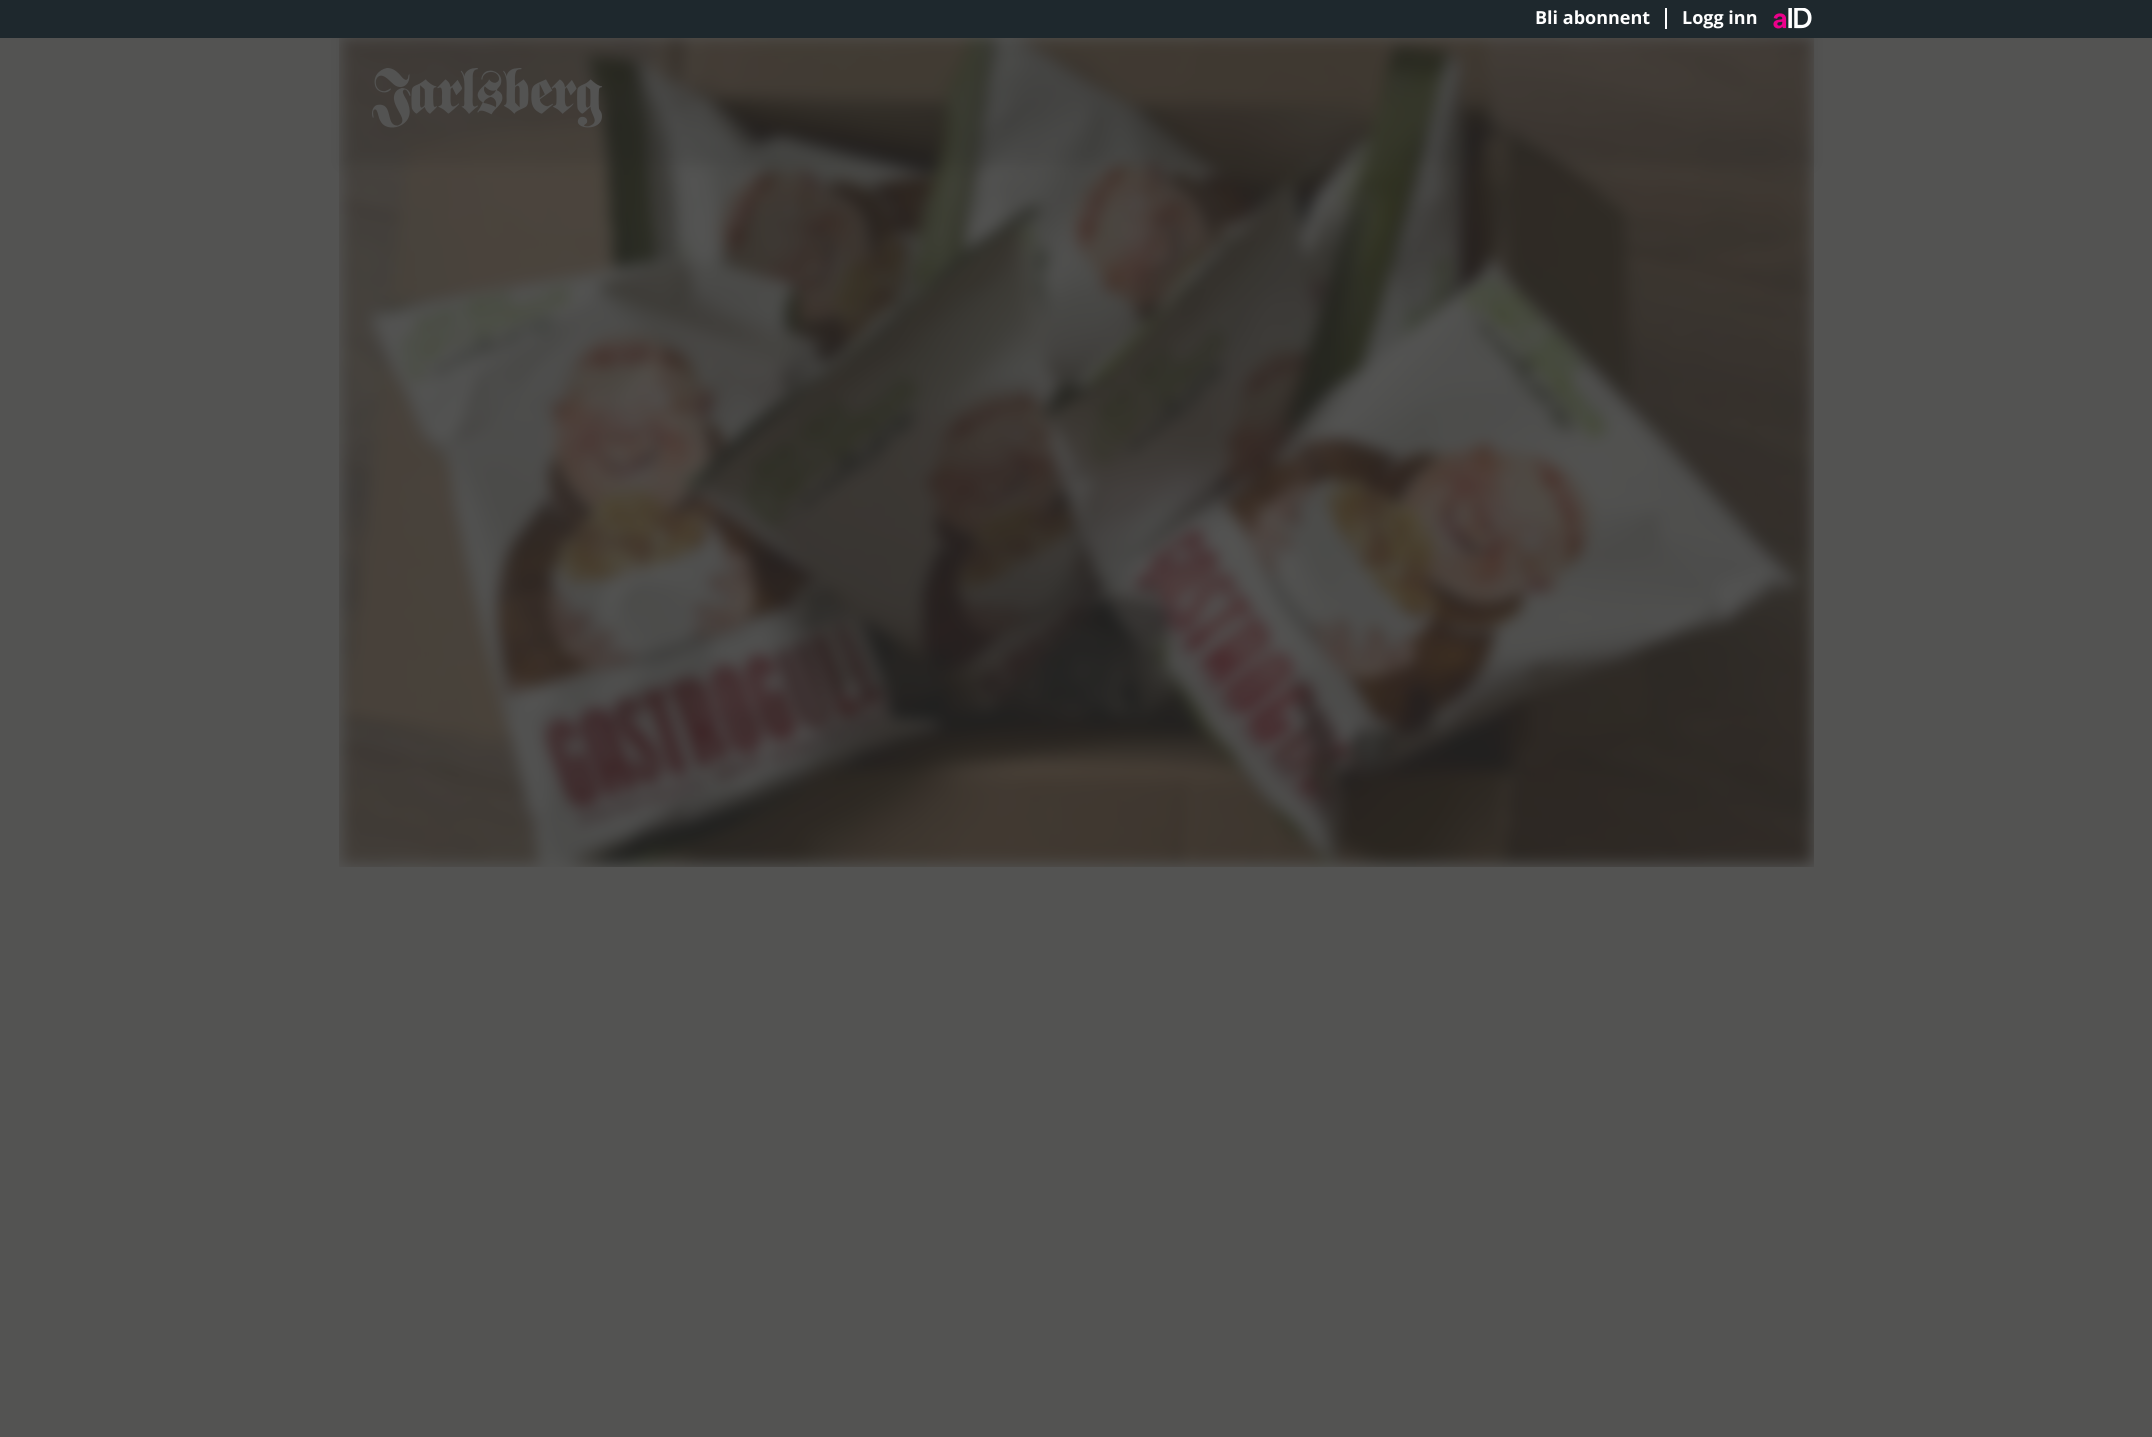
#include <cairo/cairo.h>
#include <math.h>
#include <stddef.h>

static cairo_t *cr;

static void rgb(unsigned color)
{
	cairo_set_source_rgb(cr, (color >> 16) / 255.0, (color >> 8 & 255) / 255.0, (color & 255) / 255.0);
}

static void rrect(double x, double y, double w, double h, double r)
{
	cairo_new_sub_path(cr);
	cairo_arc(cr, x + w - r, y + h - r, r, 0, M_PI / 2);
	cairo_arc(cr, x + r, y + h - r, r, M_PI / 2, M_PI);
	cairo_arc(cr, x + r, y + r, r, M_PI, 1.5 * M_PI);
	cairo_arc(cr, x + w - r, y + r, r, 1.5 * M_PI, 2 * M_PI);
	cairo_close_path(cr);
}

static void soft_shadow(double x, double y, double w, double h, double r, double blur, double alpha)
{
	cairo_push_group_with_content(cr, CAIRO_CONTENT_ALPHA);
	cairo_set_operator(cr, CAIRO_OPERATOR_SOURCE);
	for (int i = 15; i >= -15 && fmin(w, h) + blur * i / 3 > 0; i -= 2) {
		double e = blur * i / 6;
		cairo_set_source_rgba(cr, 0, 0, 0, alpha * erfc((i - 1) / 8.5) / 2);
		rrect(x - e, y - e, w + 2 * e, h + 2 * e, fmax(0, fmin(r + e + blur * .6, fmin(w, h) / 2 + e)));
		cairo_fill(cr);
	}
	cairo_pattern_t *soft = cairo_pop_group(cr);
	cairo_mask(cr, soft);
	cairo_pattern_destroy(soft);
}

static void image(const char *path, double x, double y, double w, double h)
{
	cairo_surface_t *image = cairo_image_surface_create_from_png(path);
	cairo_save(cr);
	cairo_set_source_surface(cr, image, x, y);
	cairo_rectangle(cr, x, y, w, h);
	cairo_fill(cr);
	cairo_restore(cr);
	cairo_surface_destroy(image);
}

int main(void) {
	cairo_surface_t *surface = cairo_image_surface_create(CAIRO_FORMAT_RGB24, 2152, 1437);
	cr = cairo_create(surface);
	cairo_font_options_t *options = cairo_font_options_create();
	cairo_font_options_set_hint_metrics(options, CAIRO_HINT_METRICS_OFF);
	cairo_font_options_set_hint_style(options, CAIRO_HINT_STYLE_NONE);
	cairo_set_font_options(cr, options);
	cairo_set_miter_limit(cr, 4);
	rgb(0xffffff);
	cairo_paint(cr);
	image("img/3.png", 339, 38, 1475, 829);
	rgb(0x000000);
	soft_shadow(342, 38, 1470, 126, 0, 7.5, 0.15);
	rgb(0x1e282d);
	cairo_rectangle(cr, 0, 0, 2152, 38);
	cairo_fill(cr);
	rgb(0xffffff);
	cairo_rectangle(cr, 1665, 8, 2, 21);
	cairo_fill(cr);
	image("img/1.png", 1773, 8, 39, 21);
	image("img/2.png", 372, 68, 231, 60);
	cairo_set_source_rgba(cr, 0.161, 0.157, 0.153, 0.8);
	cairo_rectangle(cr, 0, 38, 2152, 1399);
	cairo_fill(cr);
	cairo_select_font_face(cr, "Open Sans", CAIRO_FONT_SLANT_NORMAL, CAIRO_FONT_WEIGHT_BOLD);
	cairo_set_font_size(cr, 18);
	rgb(0xffffff);
	cairo_move_to(cr, 1535, 24);
	cairo_show_text(cr, "Bli abonnent");
	cairo_move_to(cr, 1682, 24);
	cairo_show_text(cr, "Logg inn");
	cairo_surface_write_to_png(surface, "page.png");
	cairo_font_options_destroy(options);
	cairo_destroy(cr);
	cairo_surface_destroy(surface);
	return 0;
}
